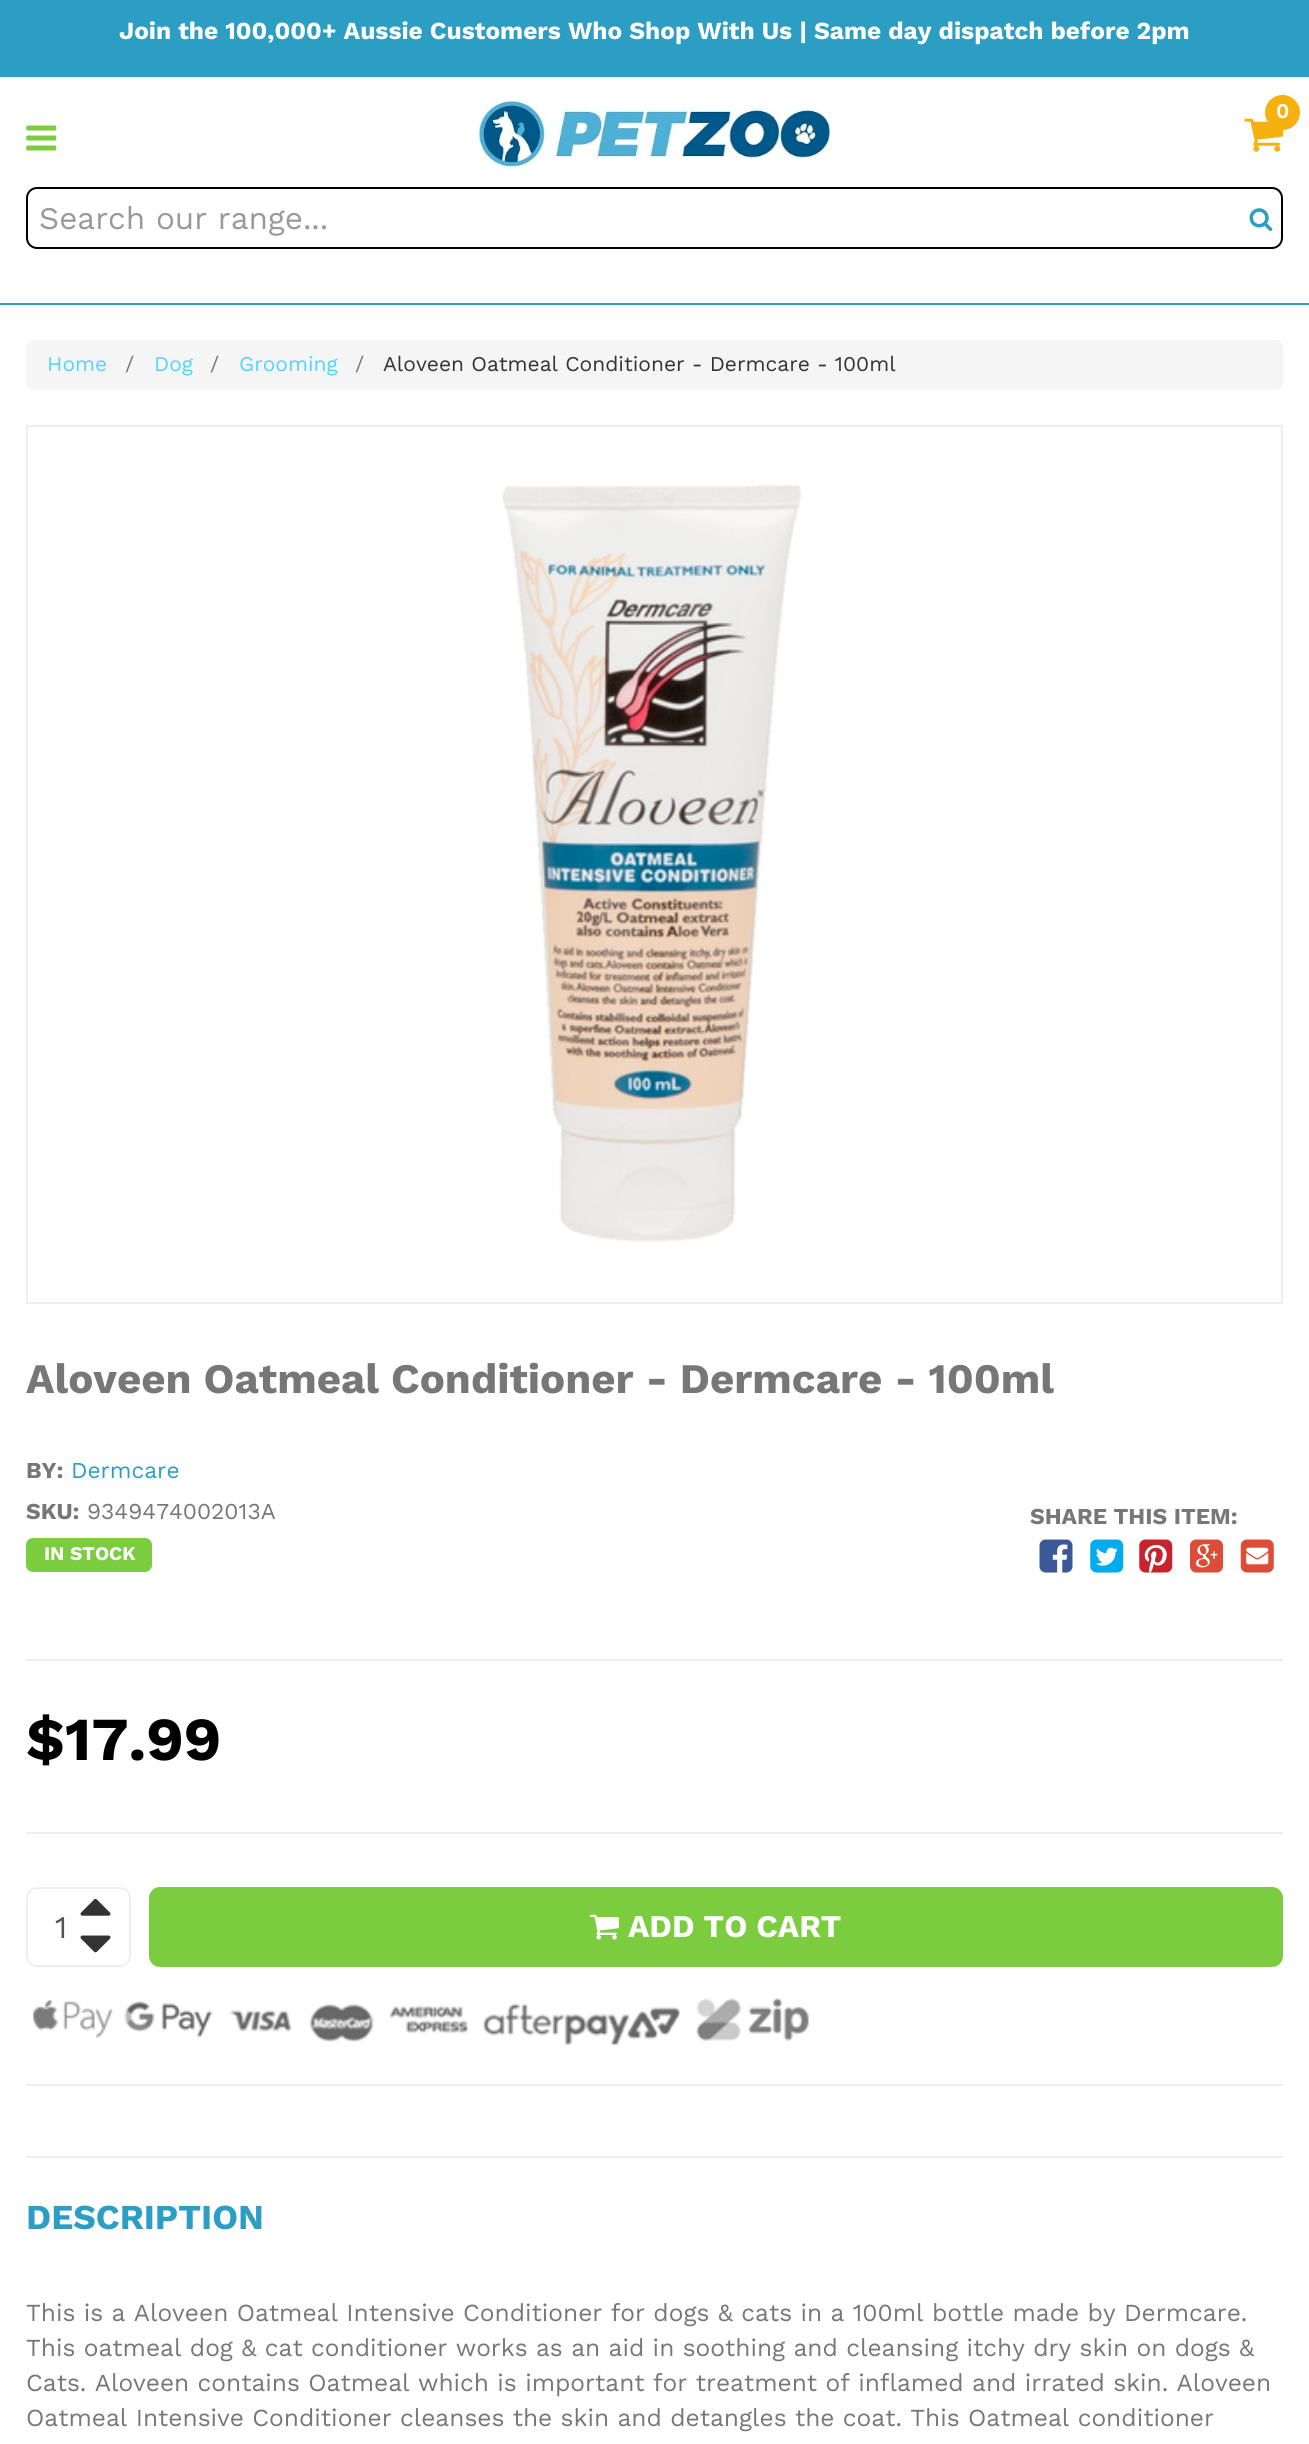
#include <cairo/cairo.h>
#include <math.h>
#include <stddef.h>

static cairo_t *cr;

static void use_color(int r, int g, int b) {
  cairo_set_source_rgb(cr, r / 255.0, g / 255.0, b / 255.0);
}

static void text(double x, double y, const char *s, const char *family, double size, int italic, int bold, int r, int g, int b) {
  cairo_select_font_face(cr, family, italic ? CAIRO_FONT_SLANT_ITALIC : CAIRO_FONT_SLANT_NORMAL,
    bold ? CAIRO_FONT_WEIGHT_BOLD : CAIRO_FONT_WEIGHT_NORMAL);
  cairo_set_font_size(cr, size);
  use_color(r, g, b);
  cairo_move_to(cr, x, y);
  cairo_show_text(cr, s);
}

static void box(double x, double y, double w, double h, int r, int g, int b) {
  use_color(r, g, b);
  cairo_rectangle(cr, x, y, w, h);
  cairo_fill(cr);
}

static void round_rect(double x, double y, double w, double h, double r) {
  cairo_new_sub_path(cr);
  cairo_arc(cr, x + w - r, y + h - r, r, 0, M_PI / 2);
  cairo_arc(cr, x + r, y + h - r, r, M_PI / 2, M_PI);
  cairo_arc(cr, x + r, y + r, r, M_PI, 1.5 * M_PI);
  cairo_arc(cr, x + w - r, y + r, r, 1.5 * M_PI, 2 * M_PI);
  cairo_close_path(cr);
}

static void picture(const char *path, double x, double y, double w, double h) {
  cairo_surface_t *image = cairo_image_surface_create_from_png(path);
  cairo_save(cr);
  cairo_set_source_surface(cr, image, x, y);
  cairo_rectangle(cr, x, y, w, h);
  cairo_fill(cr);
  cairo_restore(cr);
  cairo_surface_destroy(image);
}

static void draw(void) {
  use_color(255, 255, 255);
  cairo_paint(cr);
  box(0, 0, 1309, 77, 44, 157, 195);
  picture("img_01.png", 479, 101, 351, 66);
  picture("img_02.png", 1244, 118, 40, 34);
  use_color(246, 177, 14);
  cairo_arc(cr, 1282.5, 112.5, 17.5, 0, 2 * M_PI);
  cairo_fill(cr);
  picture("img_03.png", 26, 125, 31, 26);
  round_rect(27, 188, 1255, 60, 10);
  use_color(0, 0, 0);
  cairo_stroke(cr);
  picture("img_04.png", 1249, 208, 24, 23);
  box(0, 303, 1309, 2, 44, 157, 195);
  use_color(245, 245, 245);
  round_rect(26, 340, 1257, 50, 7);
  cairo_fill(cr);
  cairo_rectangle(cr, 27, 426, 1255, 877);
  use_color(238, 238, 238);
  cairo_stroke(cr);
  picture("img_05.png", 502, 484, 300, 758);
  picture("img_06.png", 1039, 1539, 34, 34);
  picture("img_07.png", 1090, 1539, 34, 34);
  picture("img_08.png", 1139, 1539, 34, 34);
  picture("img_09.png", 1190, 1539, 33, 34);
  picture("img_10.png", 1240, 1539, 34, 34);
  use_color(123, 204, 63);
  round_rect(26, 1538, 126, 34, 7);
  cairo_fill(cr);
  box(26, 1659, 1257, 2, 238, 238, 238);
  box(26, 1832, 1257, 2, 238, 238, 238);
  round_rect(27, 1888, 103, 78, 10);
  cairo_stroke(cr);
  picture("img_11.png", 80, 1898, 31, 18);
  picture("img_12.png", 80, 1935, 31, 18);
  use_color(123, 204, 63);
  round_rect(150, 1888, 1132, 78, 10);
  cairo_fill_preserve(cr);
  cairo_stroke(cr);
  picture("img_13.png", 589, 1914, 30, 26);
  picture("img_14.png", 32, 1998, 777, 48);
  box(26, 2084, 1257, 2, 238, 238, 238);
  box(26, 2156, 1257, 2, 238, 238, 238);
  text(119, 39, "Join the 100,000+ Aussie Customers Who Shop With Us | Same day dispatch before 2pm", "Work Sans", 24.5, 0, 1, 255, 255, 255);
  text(1276, 118, "0", "Work Sans SemiBold", 21, 0, 0, 255, 255, 255);
  text(39, 229, "Search our range...", "Work Sans", 31.5, 0, 0, 153, 153, 153);
  text(47, 371, "Home", "Work Sans", 21, 0, 0, 83, 212, 255);
  text(125, 371, "/", "Work Sans", 21, 0, 0, 119, 119, 119);
  text(154, 371, "Dog", "Work Sans", 21, 0, 0, 83, 212, 255);
  text(210, 371, "/", "Work Sans", 21, 0, 0, 119, 119, 119);
  text(239, 371, "Grooming", "Work Sans", 21, 0, 0, 83, 212, 255);
  text(355, 371, "/", "Work Sans", 21, 0, 0, 119, 119, 119);
  text(383, 371, "Aloveen Oatmeal Conditioner - Dermcare - 100ml", "Work Sans", 21, 0, 0, 51, 51, 51);
  text(26, 1393, "Aloveen Oatmeal Conditioner - Dermcare - 100ml", "Work Sans", 42, 0, 1, 119, 119, 119);
  text(26, 1478, "BY:", "Work Sans", 22.75, 0, 1, 119, 119, 119);
  text(71, 1478, "Dermcare", "Work Sans", 22.75, 0, 0, 44, 157, 195);
  text(26, 1519, "SKU:", "Work Sans", 22.75, 0, 1, 119, 119, 119);
  text(87, 1519, "9349474002013A", "Work Sans", 22.75, 0, 0, 119, 119, 119);
  text(1030, 1524, "SHARE THIS ITEM:", "Work Sans", 22.75, 0, 1, 119, 119, 119);
  text(44, 1560, "IN STOCK", "Work Sans", 19.25, 0, 1, 255, 255, 255);
  text(26, 1760, "$17.99", "Work Sans", 61, 0, 1, 0, 0, 0);
  text(55, 1938, "1", "Work Sans", 31.5, 0, 0, 85, 85, 85);
  text(628, 1937, "ADD TO CART", "Work Sans", 31.5, 0, 1, 255, 255, 255);
  text(26, 2229, "DESCRIPTION", "Work Sans", 35, 0, 1, 44, 157, 195);
  text(26, 2321, "This is a Aloveen Oatmeal Intensive Conditioner for dogs & cats in a 100ml bottle made by Dermcare.", "Work Sans", 24.5, 0, 0, 119, 119, 119);
  text(26, 2356, "This oatmeal dog & cat conditioner works as an aid in soothing and cleansing itchy dry skin on dogs &", "Work Sans", 24.5, 0, 0, 119, 119, 119);
  text(26, 2391, "Cats. Aloveen contains Oatmeal which is important for treatment of inflamed and irrated skin. Aloveen", "Work Sans", 24.5, 0, 0, 119, 119, 119);
  text(26, 2426, "Oatmeal Intensive Conditioner cleanses the skin and detangles the coat. This Oatmeal conditioner", "Work Sans", 24.5, 0, 0, 119, 119, 119);
}

int main(void) {
  cairo_surface_t *surface = cairo_image_surface_create(CAIRO_FORMAT_RGB24, 1309, 2444);
  cr = cairo_create(surface);
  cairo_font_options_t *options = cairo_font_options_create();
  cairo_font_options_set_hint_metrics(options, CAIRO_HINT_METRICS_OFF);
  cairo_font_options_set_hint_style(options, CAIRO_HINT_STYLE_NONE);
  cairo_set_font_options(cr, options);
  cairo_set_miter_limit(cr, 4);
  draw();
  cairo_surface_write_to_png(surface, "out.png");
  cairo_font_options_destroy(options);
  cairo_destroy(cr);
  cairo_surface_destroy(surface);
  return 0;
}
